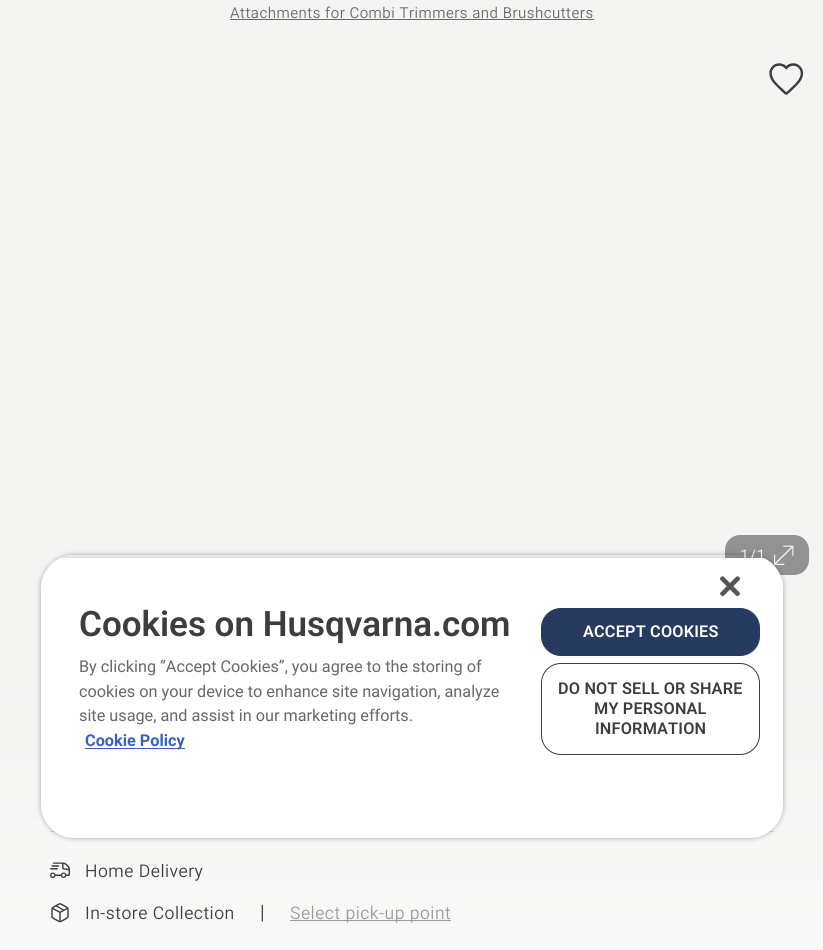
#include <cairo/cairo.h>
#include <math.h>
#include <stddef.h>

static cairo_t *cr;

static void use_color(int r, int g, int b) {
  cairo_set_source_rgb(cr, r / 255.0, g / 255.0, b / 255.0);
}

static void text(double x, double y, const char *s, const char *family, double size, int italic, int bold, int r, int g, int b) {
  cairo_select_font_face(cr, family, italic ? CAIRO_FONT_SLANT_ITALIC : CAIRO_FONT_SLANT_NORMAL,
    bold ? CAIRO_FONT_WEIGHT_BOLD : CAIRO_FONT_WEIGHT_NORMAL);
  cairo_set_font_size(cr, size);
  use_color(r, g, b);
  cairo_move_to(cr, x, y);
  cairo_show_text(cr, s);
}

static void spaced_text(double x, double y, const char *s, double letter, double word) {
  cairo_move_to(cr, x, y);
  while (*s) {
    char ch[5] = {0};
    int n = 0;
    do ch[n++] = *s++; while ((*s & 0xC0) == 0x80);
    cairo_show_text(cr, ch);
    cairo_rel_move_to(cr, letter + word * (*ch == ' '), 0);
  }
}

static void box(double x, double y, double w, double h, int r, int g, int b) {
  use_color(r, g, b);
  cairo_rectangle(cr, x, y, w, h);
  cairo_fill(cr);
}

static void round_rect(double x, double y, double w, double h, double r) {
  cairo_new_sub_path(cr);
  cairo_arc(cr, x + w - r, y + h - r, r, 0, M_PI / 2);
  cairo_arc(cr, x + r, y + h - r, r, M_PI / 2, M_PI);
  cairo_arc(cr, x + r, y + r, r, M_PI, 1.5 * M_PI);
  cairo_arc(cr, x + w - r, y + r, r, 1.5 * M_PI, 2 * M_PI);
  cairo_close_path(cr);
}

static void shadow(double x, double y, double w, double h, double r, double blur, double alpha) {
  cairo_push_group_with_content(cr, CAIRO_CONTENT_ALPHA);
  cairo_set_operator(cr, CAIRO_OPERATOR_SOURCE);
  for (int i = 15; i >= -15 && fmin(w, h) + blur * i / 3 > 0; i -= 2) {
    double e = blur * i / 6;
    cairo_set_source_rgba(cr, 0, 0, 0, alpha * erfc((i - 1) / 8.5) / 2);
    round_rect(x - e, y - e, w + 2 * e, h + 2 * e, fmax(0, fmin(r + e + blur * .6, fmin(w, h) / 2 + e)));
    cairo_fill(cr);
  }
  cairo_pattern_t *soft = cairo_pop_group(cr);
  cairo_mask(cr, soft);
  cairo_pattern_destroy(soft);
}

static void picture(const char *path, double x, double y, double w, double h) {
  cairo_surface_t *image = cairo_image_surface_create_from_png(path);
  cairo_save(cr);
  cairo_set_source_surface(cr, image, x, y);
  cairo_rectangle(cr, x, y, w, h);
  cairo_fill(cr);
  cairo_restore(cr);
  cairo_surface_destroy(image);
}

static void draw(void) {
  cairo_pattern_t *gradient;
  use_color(255, 255, 255);
  cairo_paint(cr);
  gradient = cairo_pattern_create_linear(412, -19, 412, 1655);
  cairo_pattern_add_color_stop_rgba(gradient, 0, 0.957, 0.957, 0.953, 1);
  cairo_pattern_add_color_stop_rgba(gradient, 0.41, 0.957, 0.957, 0.953, 1);
  cairo_pattern_add_color_stop_rgba(gradient, 0.82, 1, 1, 1, 1);
  cairo_set_source(cr, gradient);
  cairo_pattern_destroy(gradient);
  cairo_rectangle(cr, 0, 0, 823, 950);
  cairo_fill(cr);
  box(230, 19, 364, 1, 104, 104, 103);
  picture("img_01.png", 769, 63, 35, 32);
  use_color(146, 146, 146);
  round_rect(725, 535, 84, 40, 15);
  cairo_fill(cr);
  picture("img_02.png", 774, 545, 20, 20);
  box(50, 831, 724, 1, 210, 210, 209);
  picture("img_03.png", 50, 862, 20, 16);
  picture("img_04.png", 51, 903, 18, 20);
  box(290, 920, 161, 1, 155, 155, 154);
  cairo_save(cr);
  cairo_set_fill_rule(cr, CAIRO_FILL_RULE_EVEN_ODD);
  cairo_new_path(cr);
  cairo_move_to(cr, 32, 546);
  cairo_line_to(cr, 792, 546);
  cairo_line_to(cr, 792, 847);
  cairo_line_to(cr, 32, 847);
  cairo_close_path(cr);
  cairo_move_to(cr, 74, 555);
  cairo_line_to(cr, 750, 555);
  cairo_curve_to(cr, 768, 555, 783, 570, 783, 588);
  cairo_line_to(cr, 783, 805);
  cairo_curve_to(cr, 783, 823, 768, 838, 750, 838);
  cairo_line_to(cr, 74, 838);
  cairo_curve_to(cr, 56, 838, 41, 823, 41, 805);
  cairo_line_to(cr, 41, 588);
  cairo_curve_to(cr, 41, 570, 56, 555, 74, 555);
  cairo_close_path(cr);
  cairo_clip(cr);
  use_color(0, 0, 0);
  shadow(41, 555, 742, 283, 33, 2.5, 0.35);
  cairo_restore(cr);
  cairo_save(cr);
  round_rect(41, 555, 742, 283, 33);
  cairo_clip(cr);
  use_color(0, 0, 0);
  shadow(41, 558, 742, 280, 0, 2.5, 0.2);
  cairo_restore(cr);
  cairo_select_font_face(cr, "Roboto Light", CAIRO_FONT_SLANT_NORMAL, CAIRO_FONT_WEIGHT_NORMAL);
  cairo_set_font_size(cr, 15);
  use_color(104, 104, 103);
  spaced_text(230, 18, "Attachments for Combi Trimmers and Brushcutters", 0.5, 0);
  cairo_set_font_size(cr, 16);
  use_color(244, 244, 243);
  spaced_text(740, 561, "1/1", 0.5, 0);
  cairo_set_font_size(cr, 17.5);
  use_color(61, 61, 60);
  spaced_text(85, 877, "Home Delivery", 0.5, 0);
  spaced_text(85, 919, "In-store Collection", 0.5, 0);
  cairo_set_font_size(cr, 20);
  spaced_text(260, 919, "|", 0.5, 0);
  cairo_set_font_size(cr, 17.5);
  use_color(155, 155, 154);
  spaced_text(290, 919, "Select pick-up point", 0.5, 0);
  cairo_save(cr);
  round_rect(41, 555, 742, 283, 33);
  cairo_clip(cr);
  use_color(255, 255, 255);
  cairo_new_path(cr);
  cairo_move_to(cr, 41, 558);
  cairo_line_to(cr, 783, 558);
  cairo_line_to(cr, 783, 805);
  cairo_curve_to(cr, 783, 823, 768, 838, 750, 838);
  cairo_line_to(cr, 74, 838);
  cairo_curve_to(cr, 56, 838, 41, 823, 41, 805);
  cairo_close_path(cr);
  cairo_fill(cr);
  cairo_restore(cr);
  picture("img_05.png", 720, 576, 20, 20);
  text(79, 636, "Cookies on Husqvarna.com", "Roboto SemiBold", 35, 0, 0, 61, 61, 60);
  text(79, 672, "By clicking “Accept Cookies”, you agree to the storing of", "Roboto", 16.25, 0, 0, 104, 104, 103);
  text(79, 697, "cookies on your device to enhance site navigation, analyze", "Roboto", 16.25, 0, 0, 104, 104, 103);
  text(79, 721, "site usage, and assist in our marketing efforts.", "Roboto", 16.25, 0, 0, 104, 104, 103);
  box(85, 748, 100, 1, 56, 96, 190);
  text(85, 746, "Cookie Policy", "Roboto", 16.25, 0, 1, 56, 96, 190);
  use_color(39, 58, 96);
  round_rect(541.5, 608.5, 218, 47, 19.5);
  cairo_fill_preserve(cr);
  cairo_set_line_width(cr, 1);
  cairo_stroke(cr);
  cairo_select_font_face(cr, "Roboto SemiBold", CAIRO_FONT_SLANT_NORMAL, CAIRO_FONT_WEIGHT_NORMAL);
  use_color(255, 255, 255);
  spaced_text(583, 637, "ACCEPT COOKIES", 0.2, 0);
  round_rect(541.5, 663.5, 218, 91, 19.5);
  use_color(61, 61, 60);
  cairo_stroke(cr);
  spaced_text(558, 694, "DO NOT SELL OR SHARE", 0.2, 0);
  spaced_text(594, 714, "MY PERSONAL", 0.2, 0);
  spaced_text(595, 734, "INFORMATION", 0.2, 0);
}

int main(void) {
  cairo_surface_t *surface = cairo_image_surface_create(CAIRO_FORMAT_RGB24, 823, 950);
  cr = cairo_create(surface);
  cairo_font_options_t *options = cairo_font_options_create();
  cairo_font_options_set_hint_metrics(options, CAIRO_HINT_METRICS_OFF);
  cairo_font_options_set_hint_style(options, CAIRO_HINT_STYLE_NONE);
  cairo_set_font_options(cr, options);
  cairo_set_miter_limit(cr, 4);
  draw();
  cairo_surface_write_to_png(surface, "out.png");
  cairo_font_options_destroy(options);
  cairo_destroy(cr);
  cairo_surface_destroy(surface);
  return 0;
}
